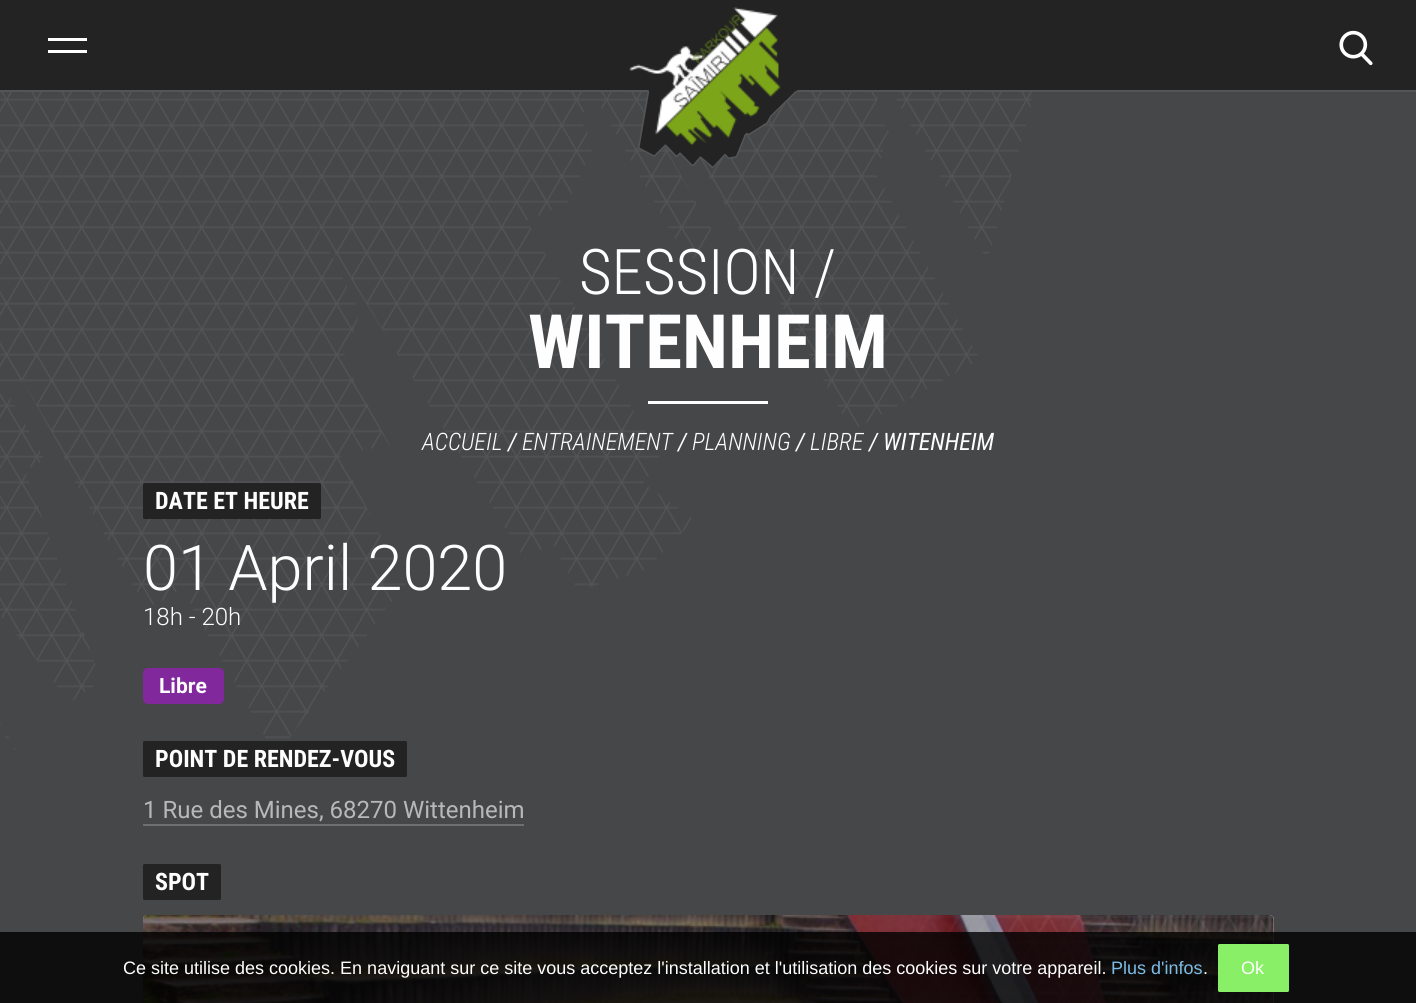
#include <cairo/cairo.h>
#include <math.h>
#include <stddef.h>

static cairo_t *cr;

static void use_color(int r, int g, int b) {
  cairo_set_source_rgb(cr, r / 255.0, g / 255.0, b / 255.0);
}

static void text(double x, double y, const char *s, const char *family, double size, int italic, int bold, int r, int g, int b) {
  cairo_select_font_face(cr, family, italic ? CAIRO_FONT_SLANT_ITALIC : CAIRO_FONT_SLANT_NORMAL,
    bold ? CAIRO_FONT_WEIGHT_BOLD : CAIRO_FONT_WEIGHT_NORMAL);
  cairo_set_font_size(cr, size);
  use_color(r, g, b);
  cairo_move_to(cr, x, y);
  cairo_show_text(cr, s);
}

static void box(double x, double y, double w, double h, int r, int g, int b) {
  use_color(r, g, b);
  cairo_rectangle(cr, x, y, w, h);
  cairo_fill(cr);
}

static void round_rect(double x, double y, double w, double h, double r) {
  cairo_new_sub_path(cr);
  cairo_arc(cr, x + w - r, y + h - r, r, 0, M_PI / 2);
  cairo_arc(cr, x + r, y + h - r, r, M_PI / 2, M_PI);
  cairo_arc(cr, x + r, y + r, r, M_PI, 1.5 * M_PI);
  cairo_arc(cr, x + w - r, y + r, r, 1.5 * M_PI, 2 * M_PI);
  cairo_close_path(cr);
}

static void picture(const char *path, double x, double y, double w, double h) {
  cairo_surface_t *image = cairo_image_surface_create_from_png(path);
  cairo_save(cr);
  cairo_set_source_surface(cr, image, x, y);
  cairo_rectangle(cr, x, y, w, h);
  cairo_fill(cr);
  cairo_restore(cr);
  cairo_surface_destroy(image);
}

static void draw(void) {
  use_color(70, 71, 73);
  cairo_paint(cr);
  box(0, 0, 1416, 90, 35, 35, 35);
  box(0, 90, 1416, 2, 84, 85, 87);
  box(48, 38, 39, 3, 255, 255, 255);
  box(48, 50, 39, 3, 255, 255, 255);
  picture("img_04.png", 0, 92, 1032, 658);
  picture("img_03.png", 638, 90, 160, 78);
  picture("img_01.png", 629, 7, 152, 139);
  picture("img_02.png", 1339, 30, 34, 36);
  box(648, 401, 120, 3, 254, 254, 254);
  use_color(35, 35, 35);
  round_rect(143, 483, 178, 36, 1.5);
  cairo_fill(cr);
  use_color(129, 40, 157);
  round_rect(144, 669, 79, 34, 4);
  cairo_fill_preserve(cr);
  cairo_stroke(cr);
  use_color(35, 35, 35);
  round_rect(143, 741, 264, 36, 1.5);
  cairo_fill(cr);
  box(143, 824, 381, 2, 110, 111, 113);
  use_color(35, 35, 35);
  round_rect(143, 864, 78, 36, 1.5);
  cairo_fill(cr);
  use_color(254, 254, 254);
  round_rect(143, 915, 1131, 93, 5);
  cairo_fill(cr);
  picture("img_05.png", 143, 915, 1131, 88);
  cairo_set_source_rgba(cr, 0.039, 0.039, 0.039, 0.35);
  round_rect(143, 915, 1131, 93, 5);
  cairo_fill(cr);
  picture("img_06.png", 912, 915, 362, 88);
  cairo_set_source_rgba(cr, 0, 0, 0, 0.8);
  cairo_rectangle(cr, 0, 932, 1416, 71);
  cairo_fill(cr);
  use_color(136, 239, 102);
  round_rect(1218, 944, 71, 48, 1.5);
  cairo_fill(cr);
  text(579, 294, "SESSION /", "Roboto Condensed Light", 63, 0, 0, 254, 254, 254);
  text(528, 368, "WITENHEIM", "Roboto Condensed", 75, 0, 1, 254, 254, 254);
  text(422, 450, "ACCUEIL", "Roboto Condensed Light", 24, 1, 0, 254, 254, 254);
  text(508, 450, "/", "Roboto Condensed", 24, 1, 0, 254, 254, 254);
  text(522, 450, "ENTRAINEMENT", "Roboto Condensed Light", 24, 1, 0, 254, 254, 254);
  text(678, 450, "/", "Roboto Condensed", 24, 1, 0, 254, 254, 254);
  text(692, 450, "PLANNING", "Roboto Condensed Light", 24, 1, 0, 254, 254, 254);
  text(796, 450, "/", "Roboto Condensed", 24, 1, 0, 254, 254, 254);
  text(810, 450, "LIBRE", "Roboto Condensed Light", 24, 1, 0, 254, 254, 254);
  text(869, 450, "/ WITENHEIM", "Roboto Condensed", 24, 1, 0, 254, 254, 254);
  text(155, 509, "DATE ET HEURE", "Roboto Condensed", 24, 0, 1, 254, 254, 254);
  text(143, 590, "01 April 2020", "Roboto Light", 63, 0, 0, 254, 254, 254);
  text(143, 625, "18h - 20h", "Roboto Light", 24, 0, 0, 254, 254, 254);
  text(159, 693, "Libre", "Roboto", 21, 0, 1, 254, 254, 254);
  text(155, 767, "POINT DE RENDEZ-VOUS", "Roboto Condensed", 24, 0, 1, 254, 254, 254);
  text(143, 818, "1 Rue des Mines, 68270 Wittenheim", "Roboto", 24, 0, 0, 184, 184, 185);
  text(155, 890, "SPOT", "Roboto Condensed", 24, 0, 1, 254, 254, 254);
  text(123, 974, "Ce site utilise des cookies. En naviguant sur ce site vous acceptez l'installation et l'utilisation des cookies sur votre appareil.", "Liberation Sans", 18, 0, 0, 254, 254, 254);
  text(1111, 974, "Plus d'infos", "Liberation Sans", 18, 0, 0, 123, 189, 232);
  text(1203, 974, ".", "Liberation Sans", 18, 0, 0, 254, 254, 254);
  text(1241, 974, "Ok", "Liberation Sans", 18, 0, 0, 254, 254, 254);
}

int main(void) {
  cairo_surface_t *surface = cairo_image_surface_create(CAIRO_FORMAT_RGB24, 1416, 1003);
  cr = cairo_create(surface);
  cairo_font_options_t *options = cairo_font_options_create();
  cairo_font_options_set_hint_metrics(options, CAIRO_HINT_METRICS_OFF);
  cairo_font_options_set_hint_style(options, CAIRO_HINT_STYLE_NONE);
  cairo_set_font_options(cr, options);
  cairo_set_miter_limit(cr, 4);
  draw();
  cairo_surface_write_to_png(surface, "out.png");
  cairo_font_options_destroy(options);
  cairo_destroy(cr);
  cairo_surface_destroy(surface);
  return 0;
}
